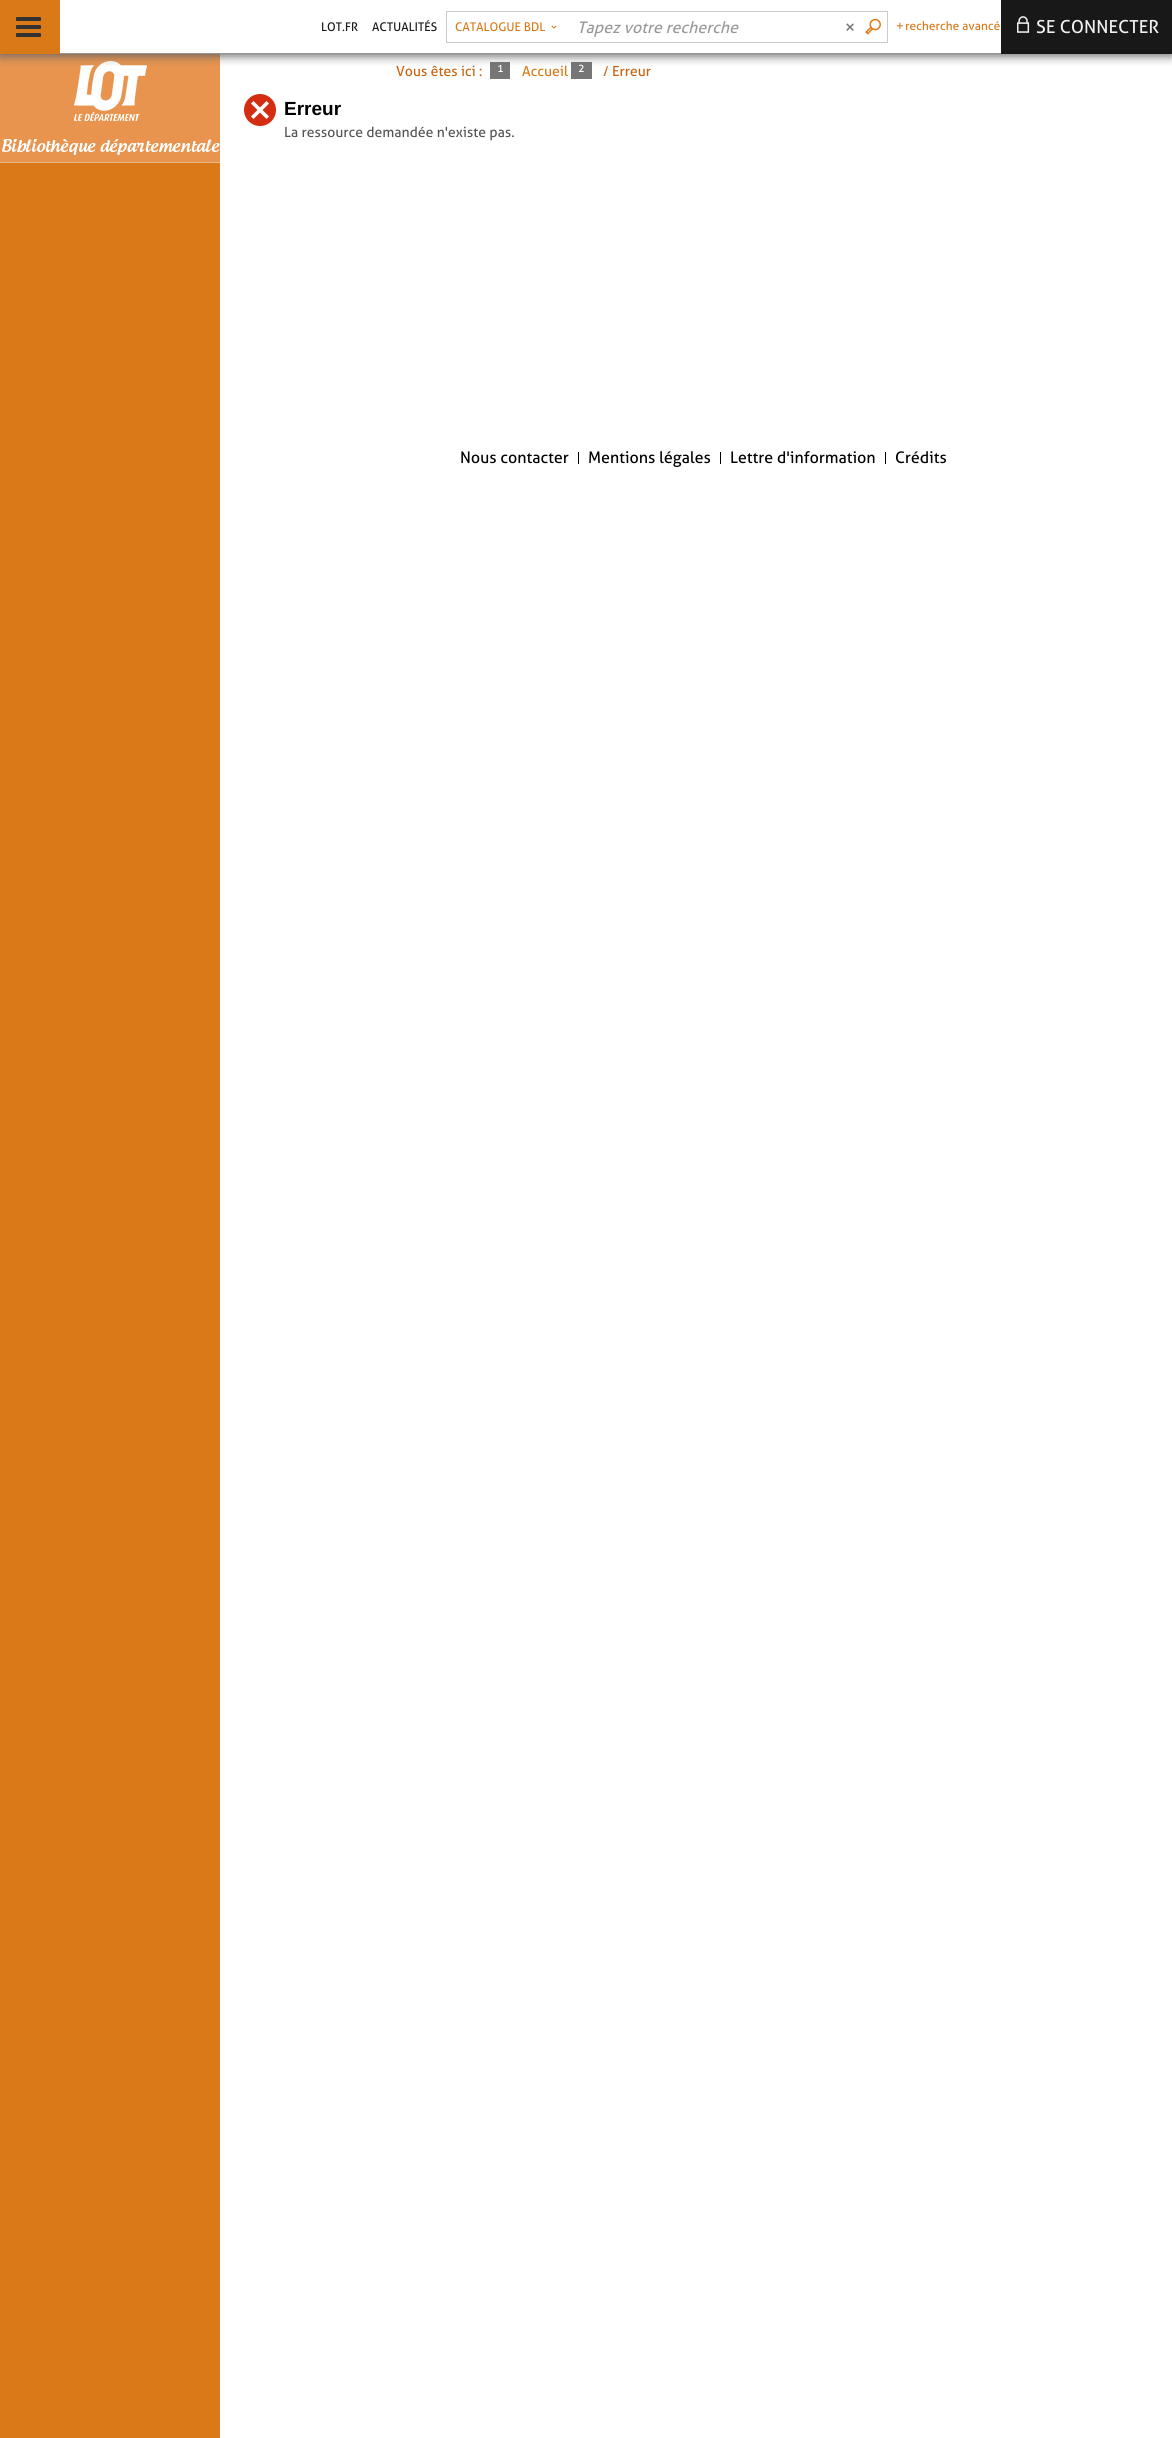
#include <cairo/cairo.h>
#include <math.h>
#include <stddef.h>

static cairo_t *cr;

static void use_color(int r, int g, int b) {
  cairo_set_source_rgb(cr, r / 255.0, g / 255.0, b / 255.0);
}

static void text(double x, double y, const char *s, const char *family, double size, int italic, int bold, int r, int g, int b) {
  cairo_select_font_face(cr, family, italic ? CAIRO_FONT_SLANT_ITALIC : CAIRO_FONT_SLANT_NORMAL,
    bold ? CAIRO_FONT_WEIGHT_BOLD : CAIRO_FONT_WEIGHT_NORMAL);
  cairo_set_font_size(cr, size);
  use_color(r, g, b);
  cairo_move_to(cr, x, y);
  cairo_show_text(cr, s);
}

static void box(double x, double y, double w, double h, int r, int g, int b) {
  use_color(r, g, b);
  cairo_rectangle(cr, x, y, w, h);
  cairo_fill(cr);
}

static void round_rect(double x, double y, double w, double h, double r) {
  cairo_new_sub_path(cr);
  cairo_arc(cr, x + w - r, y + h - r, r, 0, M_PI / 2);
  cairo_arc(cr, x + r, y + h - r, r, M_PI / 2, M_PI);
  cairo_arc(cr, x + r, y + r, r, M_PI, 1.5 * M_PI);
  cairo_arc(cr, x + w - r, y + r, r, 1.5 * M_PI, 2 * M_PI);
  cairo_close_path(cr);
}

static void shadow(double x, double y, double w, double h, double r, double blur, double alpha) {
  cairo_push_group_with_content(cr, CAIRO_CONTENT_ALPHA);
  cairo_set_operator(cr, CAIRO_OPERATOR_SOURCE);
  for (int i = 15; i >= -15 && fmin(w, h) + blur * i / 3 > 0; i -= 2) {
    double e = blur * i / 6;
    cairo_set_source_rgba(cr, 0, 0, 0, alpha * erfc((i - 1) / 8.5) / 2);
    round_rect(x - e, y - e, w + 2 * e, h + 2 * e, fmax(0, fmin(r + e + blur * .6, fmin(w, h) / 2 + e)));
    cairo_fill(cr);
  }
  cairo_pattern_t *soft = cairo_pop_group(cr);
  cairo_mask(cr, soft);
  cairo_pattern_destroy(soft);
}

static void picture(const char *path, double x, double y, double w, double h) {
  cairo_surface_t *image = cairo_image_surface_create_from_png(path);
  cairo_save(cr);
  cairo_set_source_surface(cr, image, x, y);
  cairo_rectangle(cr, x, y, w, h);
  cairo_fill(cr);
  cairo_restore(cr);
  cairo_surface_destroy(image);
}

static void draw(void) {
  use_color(255, 255, 255);
  cairo_paint(cr);
  picture("img_01.png", 0, 54, 220, 2384);
  box(490, 62, 20, 17, 118, 118, 118);
  box(571, 62, 21, 17, 118, 118, 118);
  picture("img_13.png", 396, 65, 86, 12);
  picture("img_14.png", 498, 64, 5, 8);
  picture("img_15.png", 522, 65, 46, 12);
  picture("img_16.png", 578, 64, 6, 8);
  use_color(199, 99, 16);
  cairo_new_path(cr);
  cairo_move_to(cr, 607, 66);
  cairo_line_to(cr, 608, 66);
  cairo_line_to(cr, 605, 76);
  cairo_line_to(cr, 603.5, 76);
  cairo_close_path(cr);
  cairo_fill(cr);
  picture("img_17.png", 613, 65, 38, 12);
  cairo_save(cr);
  cairo_rectangle(cr, 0, 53, 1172, 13);
  cairo_clip(cr);
  use_color(102, 102, 102);
  shadow(0, 3, 1172, 53, 0, 5, 1);
  cairo_restore(cr);
  box(0, 0, 60, 54, 218, 121, 24);
  use_color(51, 51, 51);
  round_rect(16, 17, 25, 4, 1);
  cairo_fill(cr);
  round_rect(16, 25, 25, 4, 1);
  cairo_fill(cr);
  round_rect(16, 33, 25, 4, 1);
  cairo_fill(cr);
  picture("img_02.png", 322, 22, 36, 10);
  picture("img_03.png", 372, 20, 65, 12);
  box(1001, 0, 171, 54, 24, 24, 24);
  picture("img_04.png", 1017, 16, 13, 17);
  picture("img_05.png", 1036, 19, 123, 15);
  cairo_rectangle(cr, 446.5, 11.5, 441, 31);
  use_color(203, 203, 203);
  cairo_set_line_width(cr, 1);
  cairo_stroke(cr);
  picture("img_06.png", 455, 22, 90, 10);
  picture("img_07.png", 551, 25, 6, 4);
  picture("img_08.png", 580, 21, 159, 16);
  picture("img_09.png", 846, 23, 8, 8);
  picture("img_10.png", 865, 18, 16, 17);
  picture("img_11.png", 896, 22, 7, 7);
  picture("img_12.png", 905, 21, 96, 10);
  picture("img_18.png", 244, 94, 32, 32);
  picture("img_19.png", 285, 126, 229, 15);
  picture("img_20.png", 461, 451, 108, 13);
  box(578, 452, 1, 12, 0, 0, 0);
  picture("img_21.png", 589, 451, 122, 16);
  box(720, 452, 1, 12, 0, 0, 0);
  picture("img_22.png", 731, 451, 144, 13);
  box(885, 452, 1, 12, 0, 0, 0);
  picture("img_23.png", 895, 451, 51, 13);
  text(284, 115, "Erreur", "Liberation Sans", 19, 0, 1, 0, 0, 0);
}

int main(void) {
  cairo_surface_t *surface = cairo_image_surface_create(CAIRO_FORMAT_RGB24, 1172, 2438);
  cr = cairo_create(surface);
  cairo_font_options_t *options = cairo_font_options_create();
  cairo_font_options_set_hint_metrics(options, CAIRO_HINT_METRICS_OFF);
  cairo_font_options_set_hint_style(options, CAIRO_HINT_STYLE_NONE);
  cairo_set_font_options(cr, options);
  cairo_set_miter_limit(cr, 4);
  draw();
  cairo_surface_write_to_png(surface, "out.png");
  cairo_font_options_destroy(options);
  cairo_destroy(cr);
  cairo_surface_destroy(surface);
  return 0;
}
